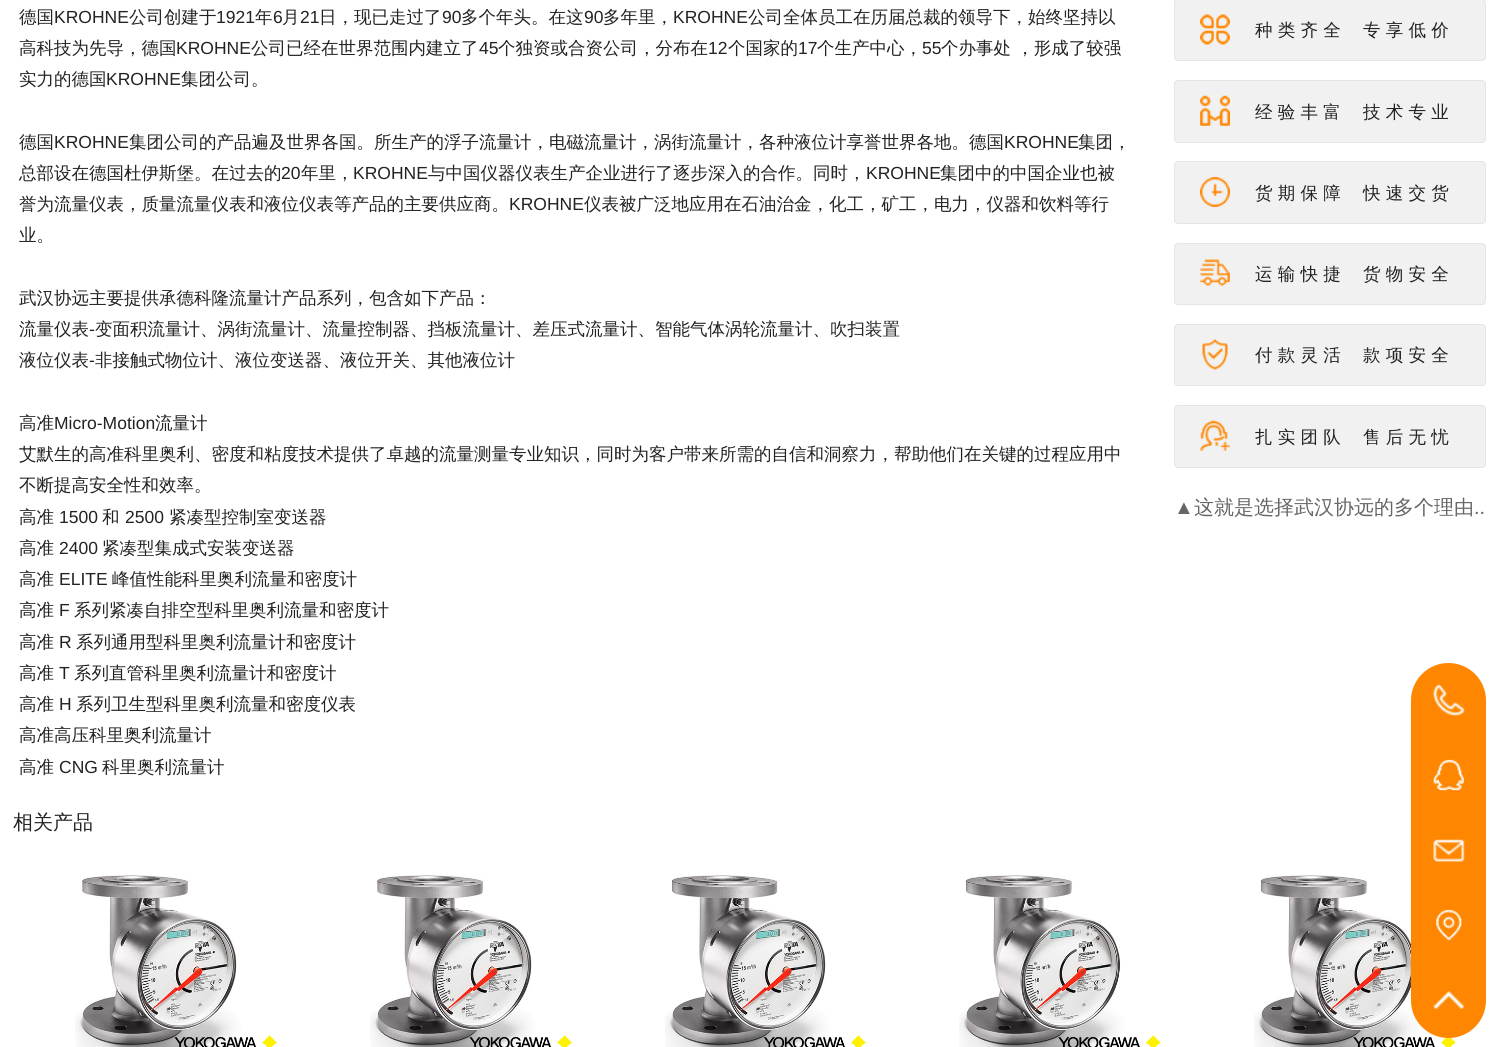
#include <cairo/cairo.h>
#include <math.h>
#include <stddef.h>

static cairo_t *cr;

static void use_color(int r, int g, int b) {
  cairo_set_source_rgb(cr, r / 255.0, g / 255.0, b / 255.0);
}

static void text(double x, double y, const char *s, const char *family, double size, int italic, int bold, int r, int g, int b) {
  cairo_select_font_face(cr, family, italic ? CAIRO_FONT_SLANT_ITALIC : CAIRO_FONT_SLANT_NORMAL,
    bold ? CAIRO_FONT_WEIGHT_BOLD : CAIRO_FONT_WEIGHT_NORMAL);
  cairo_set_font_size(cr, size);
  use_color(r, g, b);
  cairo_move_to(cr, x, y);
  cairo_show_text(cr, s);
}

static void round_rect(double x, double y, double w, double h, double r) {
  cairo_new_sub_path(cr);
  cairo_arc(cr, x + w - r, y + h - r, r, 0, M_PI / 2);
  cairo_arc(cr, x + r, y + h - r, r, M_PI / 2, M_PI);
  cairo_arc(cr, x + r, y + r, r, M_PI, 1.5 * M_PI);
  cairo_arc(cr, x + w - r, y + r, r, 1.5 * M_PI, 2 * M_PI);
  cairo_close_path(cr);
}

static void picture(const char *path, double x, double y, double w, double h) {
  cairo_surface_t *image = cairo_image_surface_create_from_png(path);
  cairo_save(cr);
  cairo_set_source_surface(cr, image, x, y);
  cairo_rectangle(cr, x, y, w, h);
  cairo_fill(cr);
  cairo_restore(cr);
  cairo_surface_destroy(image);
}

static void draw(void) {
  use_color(255, 255, 255);
  cairo_paint(cr);
  use_color(241, 241, 241);
  round_rect(1174.5, -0.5, 311, 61, 3.5);
  cairo_fill_preserve(cr);
  use_color(229, 229, 229);
  cairo_set_line_width(cr, 1);
  cairo_stroke(cr);
  picture("img_01.png", 1200, 14, 30, 31);
  use_color(241, 241, 241);
  round_rect(1174.5, 80.5, 311, 62, 3.5);
  cairo_fill_preserve(cr);
  use_color(229, 229, 229);
  cairo_stroke(cr);
  picture("img_02.png", 1200, 95, 30, 31);
  use_color(241, 241, 241);
  round_rect(1174.5, 161.5, 311, 62, 3.5);
  cairo_fill_preserve(cr);
  use_color(229, 229, 229);
  cairo_stroke(cr);
  picture("img_03.png", 1200, 177, 30, 30);
  use_color(241, 241, 241);
  round_rect(1174.5, 243.5, 311, 61, 3.5);
  cairo_fill_preserve(cr);
  use_color(229, 229, 229);
  cairo_stroke(cr);
  picture("img_04.png", 1200, 259, 30, 27);
  use_color(241, 241, 241);
  round_rect(1174.5, 324.5, 311, 61, 3.5);
  cairo_fill_preserve(cr);
  use_color(229, 229, 229);
  cairo_stroke(cr);
  picture("img_05.png", 1202, 339, 26, 31);
  use_color(241, 241, 241);
  round_rect(1174.5, 405.5, 311, 62, 3.5);
  cairo_fill_preserve(cr);
  use_color(229, 229, 229);
  cairo_stroke(cr);
  picture("img_06.png", 1200, 420, 30, 31);
  picture("img_07.png", 75, 875, 203, 172);
  picture("img_08.png", 370, 875, 203, 172);
  picture("img_09.png", 665, 875, 201, 172);
  picture("img_10.png", 959, 875, 202, 172);
  picture("img_11.png", 1254, 875, 202, 172);
  use_color(255, 134, 0);
  round_rect(1411, 663, 75, 375, 37.5);
  cairo_fill(cr);
  picture("img_12.png", 1433, 684, 32, 32);
  picture("img_13.png", 1433, 759, 31, 32);
  picture("img_14.png", 1433, 839, 32, 24);
  picture("img_15.png", 1436, 909, 26, 32);
  picture("img_16.png", 1433, 991, 32, 19);
  text(19, 23, "德国", "WenQuanYi Zen Hei Medium", 17.5, 0, 0, 34, 34, 34);
  text(54, 23, "KROHNE", "Liberation Sans", 17.5, 0, 0, 34, 34, 34);
  text(129, 23, "公司创建于", "WenQuanYi Zen Hei Medium", 17.5, 0, 0, 34, 34, 34);
  text(216, 23, "1921", "Liberation Sans", 17.5, 0, 0, 34, 34, 34);
  text(255, 23, "年", "WenQuanYi Zen Hei Medium", 17.5, 0, 0, 34, 34, 34);
  text(273, 23, "6", "Liberation Sans", 17.5, 0, 0, 34, 34, 34);
  text(282, 23, "月", "WenQuanYi Zen Hei Medium", 17.5, 0, 0, 34, 34, 34);
  text(300, 23, "21", "Liberation Sans", 17.5, 0, 0, 34, 34, 34);
  text(319, 23, "日，现已走过了", "WenQuanYi Zen Hei Medium", 17.5, 0, 0, 34, 34, 34);
  text(442, 23, "90", "Liberation Sans", 17.5, 0, 0, 34, 34, 34);
  text(461, 23, "多个年头。在这", "WenQuanYi Zen Hei Medium", 17.5, 0, 0, 34, 34, 34);
  text(584, 23, "90", "Liberation Sans", 17.5, 0, 0, 34, 34, 34);
  text(603, 23, "多年里，", "WenQuanYi Zen Hei Medium", 17.5, 0, 0, 34, 34, 34);
  text(673, 23, "KROHNE", "Liberation Sans", 17.5, 0, 0, 34, 34, 34);
  text(748, 23, "公司全体员工在历届总裁的领导下，始终坚持以", "WenQuanYi Zen Hei Medium", 17.5, 0, 0, 34, 34, 34);
  text(19, 54, "高科技为先导，德国", "WenQuanYi Zen Hei Medium", 17.5, 0, 0, 34, 34, 34);
  text(176, 54, "KROHNE", "Liberation Sans", 17.5, 0, 0, 34, 34, 34);
  text(251, 54, "公司已经在世界范围内建立了", "WenQuanYi Zen Hei Medium", 17.5, 0, 0, 34, 34, 34);
  text(479, 54, "45", "Liberation Sans", 17.5, 0, 0, 34, 34, 34);
  text(498, 54, "个独资或合资公司，分布在", "WenQuanYi Zen Hei Medium", 17.5, 0, 0, 34, 34, 34);
  text(708, 54, "12", "Liberation Sans", 17.5, 0, 0, 34, 34, 34);
  text(728, 54, "个国家的", "WenQuanYi Zen Hei Medium", 17.5, 0, 0, 34, 34, 34);
  text(798, 54, "17", "Liberation Sans", 17.5, 0, 0, 34, 34, 34);
  text(817, 54, "个生产中心，", "WenQuanYi Zen Hei Medium", 17.5, 0, 0, 34, 34, 34);
  text(922, 54, "55", "Liberation Sans", 17.5, 0, 0, 34, 34, 34);
  text(941, 54, "个办事处 ，形成了较强", "WenQuanYi Zen Hei Medium", 17.5, 0, 0, 34, 34, 34);
  text(19, 85, "实力的德国", "WenQuanYi Zen Hei Medium", 17.5, 0, 0, 34, 34, 34);
  text(106, 85, "KROHNE", "Liberation Sans", 17.5, 0, 0, 34, 34, 34);
  text(181, 85, "集团公司。", "WenQuanYi Zen Hei Medium", 17.5, 0, 0, 34, 34, 34);
  text(19, 148, "德国", "WenQuanYi Zen Hei Medium", 17.5, 0, 0, 34, 34, 34);
  text(54, 148, "KROHNE", "Liberation Sans", 17.5, 0, 0, 34, 34, 34);
  text(129, 148, "集团公司的产品遍及世界各国。所生产的浮子流量计，电磁流量计，涡街流量计，各种液位计享誉世界各地。德国", "WenQuanYi Zen Hei Medium", 17.5, 0, 0, 34, 34, 34);
  text(1004, 148, "KROHNE", "Liberation Sans", 17.5, 0, 0, 34, 34, 34);
  text(1078, 148, "集团，", "WenQuanYi Zen Hei Medium", 17.5, 0, 0, 34, 34, 34);
  text(19, 179, "总部设在德国杜伊斯堡。在过去的", "WenQuanYi Zen Hei Medium", 17.5, 0, 0, 34, 34, 34);
  text(281, 179, "20", "Liberation Sans", 17.5, 0, 0, 34, 34, 34);
  text(301, 179, "年里，", "WenQuanYi Zen Hei Medium", 17.5, 0, 0, 34, 34, 34);
  text(353, 179, "KROHNE", "Liberation Sans", 17.5, 0, 0, 34, 34, 34);
  text(428, 179, "与中国仪器仪表生产企业进行了逐步深入的合作。同时，", "WenQuanYi Zen Hei Medium", 17.5, 0, 0, 34, 34, 34);
  text(866, 179, "KROHNE", "Liberation Sans", 17.5, 0, 0, 34, 34, 34);
  text(940, 179, "集团中的中国企业也被", "WenQuanYi Zen Hei Medium", 17.5, 0, 0, 34, 34, 34);
  text(19, 210, "誉为流量仪表，质量流量仪表和液位仪表等产品的主要供应商。", "WenQuanYi Zen Hei Medium", 17.5, 0, 0, 34, 34, 34);
  text(509, 210, "KROHNE", "Liberation Sans", 17.5, 0, 0, 34, 34, 34);
  text(584, 210, "仪表被广泛地应用在石油治金，化工，矿工，电力，仪器和饮料等行", "WenQuanYi Zen Hei Medium", 17.5, 0, 0, 34, 34, 34);
  text(19, 241, "业。", "WenQuanYi Zen Hei Medium", 17.5, 0, 0, 34, 34, 34);
  text(19, 304, "武汉协远主要提供承德科隆流量计产品系列，包含如下产品：", "WenQuanYi Zen Hei Medium", 17.5, 0, 0, 34, 34, 34);
  text(19, 335, "流量仪表", "WenQuanYi Zen Hei Medium", 17.5, 0, 0, 34, 34, 34);
  text(89, 335, "-", "Liberation Sans", 17.5, 0, 0, 34, 34, 34);
  text(95, 335, "变面积流量计、涡街流量计、流量控制器、挡板流量计、差压式流量计、智能气体涡轮流量计、吹扫装置", "WenQuanYi Zen Hei Medium", 17.5, 0, 0, 34, 34, 34);
  text(19, 366, "液位仪表", "WenQuanYi Zen Hei Medium", 17.5, 0, 0, 34, 34, 34);
  text(89, 366, "-", "Liberation Sans", 17.5, 0, 0, 34, 34, 34);
  text(95, 366, "非接触式物位计、液位变送器、液位开关、其他液位计", "WenQuanYi Zen Hei Medium", 17.5, 0, 0, 34, 34, 34);
  text(19, 429, "高准", "WenQuanYi Zen Hei Medium", 17.5, 0, 0, 34, 34, 34);
  text(54, 429, "Micro-Motion", "Liberation Sans", 17.5, 0, 0, 34, 34, 34);
  text(155, 429, "流量计", "WenQuanYi Zen Hei Medium", 17.5, 0, 0, 34, 34, 34);
  text(19, 460, "艾默生的高准科里奥利、密度和粘度技术提供了卓越的流量测量专业知识，同时为客户带来所需的自信和洞察力，帮助他们在关键的过程应用中", "WenQuanYi Zen Hei Medium", 17.5, 0, 0, 34, 34, 34);
  text(19, 491, "不断提高安全性和效率。", "WenQuanYi Zen Hei Medium", 17.5, 0, 0, 34, 34, 34);
  text(19, 523, "高准", "WenQuanYi Zen Hei Medium", 17.5, 0, 0, 34, 34, 34);
  text(59, 523, "1500", "Liberation Sans", 17.5, 0, 0, 34, 34, 34);
  text(102, 523, "和", "WenQuanYi Zen Hei Medium", 17.5, 0, 0, 34, 34, 34);
  text(125, 523, "2500", "Liberation Sans", 17.5, 0, 0, 34, 34, 34);
  text(169, 523, "紧凑型控制室变送器", "WenQuanYi Zen Hei Medium", 17.5, 0, 0, 34, 34, 34);
  text(19, 554, "高准", "WenQuanYi Zen Hei Medium", 17.5, 0, 0, 34, 34, 34);
  text(59, 554, "2400", "Liberation Sans", 17.5, 0, 0, 34, 34, 34);
  text(102, 554, "紧凑型集成式安装变送器", "WenQuanYi Zen Hei Medium", 17.5, 0, 0, 34, 34, 34);
  text(19, 585, "高准", "WenQuanYi Zen Hei Medium", 17.5, 0, 0, 34, 34, 34);
  text(59, 585, "ELITE", "Liberation Sans", 17.5, 0, 0, 34, 34, 34);
  text(112, 585, "峰值性能科里奥利流量和密度计", "WenQuanYi Zen Hei Medium", 17.5, 0, 0, 34, 34, 34);
  text(19, 616, "高准", "WenQuanYi Zen Hei Medium", 17.5, 0, 0, 34, 34, 34);
  text(59, 616, "F", "Liberation Sans", 17.5, 0, 0, 34, 34, 34);
  text(74, 616, "系列紧凑自排空型科里奥利流量和密度计", "WenQuanYi Zen Hei Medium", 17.5, 0, 0, 34, 34, 34);
  text(19, 648, "高准", "WenQuanYi Zen Hei Medium", 17.5, 0, 0, 34, 34, 34);
  text(59, 648, "R", "Liberation Sans", 17.5, 0, 0, 34, 34, 34);
  text(76, 648, "系列通用型科里奥利流量计和密度计", "WenQuanYi Zen Hei Medium", 17.5, 0, 0, 34, 34, 34);
  text(19, 679, "高准", "WenQuanYi Zen Hei Medium", 17.5, 0, 0, 34, 34, 34);
  text(59, 679, "T", "Liberation Sans", 17.5, 0, 0, 34, 34, 34);
  text(74, 679, "系列直管科里奥利流量计和密度计", "WenQuanYi Zen Hei Medium", 17.5, 0, 0, 34, 34, 34);
  text(19, 710, "高准", "WenQuanYi Zen Hei Medium", 17.5, 0, 0, 34, 34, 34);
  text(59, 710, "H", "Liberation Sans", 17.5, 0, 0, 34, 34, 34);
  text(76, 710, "系列卫生型科里奥利流量和密度仪表", "WenQuanYi Zen Hei Medium", 17.5, 0, 0, 34, 34, 34);
  text(19, 741, "高准高压科里奥利流量计", "WenQuanYi Zen Hei Medium", 17.5, 0, 0, 34, 34, 34);
  text(19, 773, "高准", "WenQuanYi Zen Hei Medium", 17.5, 0, 0, 34, 34, 34);
  text(59, 773, "CNG", "Liberation Sans", 17.5, 0, 0, 34, 34, 34);
  text(102, 773, "科里奥利流量计", "WenQuanYi Zen Hei Medium", 17.5, 0, 0, 34, 34, 34);
  text(1255, 36, "种 类 齐 全", "WenQuanYi Zen Hei Medium", 17.5, 0, 0, 34, 34, 34);
  text(1363, 36, "专 享 低 价", "WenQuanYi Zen Hei Medium", 17.5, 0, 0, 34, 34, 34);
  text(1255, 118, "经 验 丰 富", "WenQuanYi Zen Hei Medium", 17.5, 0, 0, 34, 34, 34);
  text(1363, 118, "技 术 专 业", "WenQuanYi Zen Hei Medium", 17.5, 0, 0, 34, 34, 34);
  text(1255, 199, "货 期 保 障", "WenQuanYi Zen Hei Medium", 17.5, 0, 0, 34, 34, 34);
  text(1363, 199, "快 速 交 货", "WenQuanYi Zen Hei Medium", 17.5, 0, 0, 34, 34, 34);
  text(1255, 280, "运 输 快 捷", "WenQuanYi Zen Hei Medium", 17.5, 0, 0, 34, 34, 34);
  text(1363, 280, "货 物 安 全", "WenQuanYi Zen Hei Medium", 17.5, 0, 0, 34, 34, 34);
  text(1255, 361, "付 款 灵 活", "WenQuanYi Zen Hei Medium", 17.5, 0, 0, 34, 34, 34);
  text(1363, 361, "款 项 安 全", "WenQuanYi Zen Hei Medium", 17.5, 0, 0, 34, 34, 34);
  text(1255, 443, "扎 实 团 队", "WenQuanYi Zen Hei Medium", 17.5, 0, 0, 34, 34, 34);
  text(1363, 443, "售 后 无 忧", "WenQuanYi Zen Hei Medium", 17.5, 0, 0, 34, 34, 34);
  text(1174, 514, "▲", "Liberation Sans", 20, 0, 0, 102, 102, 102);
  text(1194, 514, "这就是选择武汉协远的多个理由", "WenQuanYi Zen Hei Medium", 20, 0, 0, 102, 102, 102);
  text(1474, 514, "..", "Liberation Sans", 20, 0, 0, 102, 102, 102);
  text(13, 829, "相关产品", "WenQuanYi Zen Hei Medium", 20, 0, 0, 34, 34, 34);
}

int main(void) {
  cairo_surface_t *surface = cairo_image_surface_create(CAIRO_FORMAT_RGB24, 1498, 1047);
  cr = cairo_create(surface);
  cairo_font_options_t *options = cairo_font_options_create();
  cairo_font_options_set_hint_metrics(options, CAIRO_HINT_METRICS_OFF);
  cairo_font_options_set_hint_style(options, CAIRO_HINT_STYLE_NONE);
  cairo_set_font_options(cr, options);
  cairo_set_miter_limit(cr, 4);
  draw();
  cairo_surface_write_to_png(surface, "out.png");
  cairo_font_options_destroy(options);
  cairo_destroy(cr);
  cairo_surface_destroy(surface);
  return 0;
}
